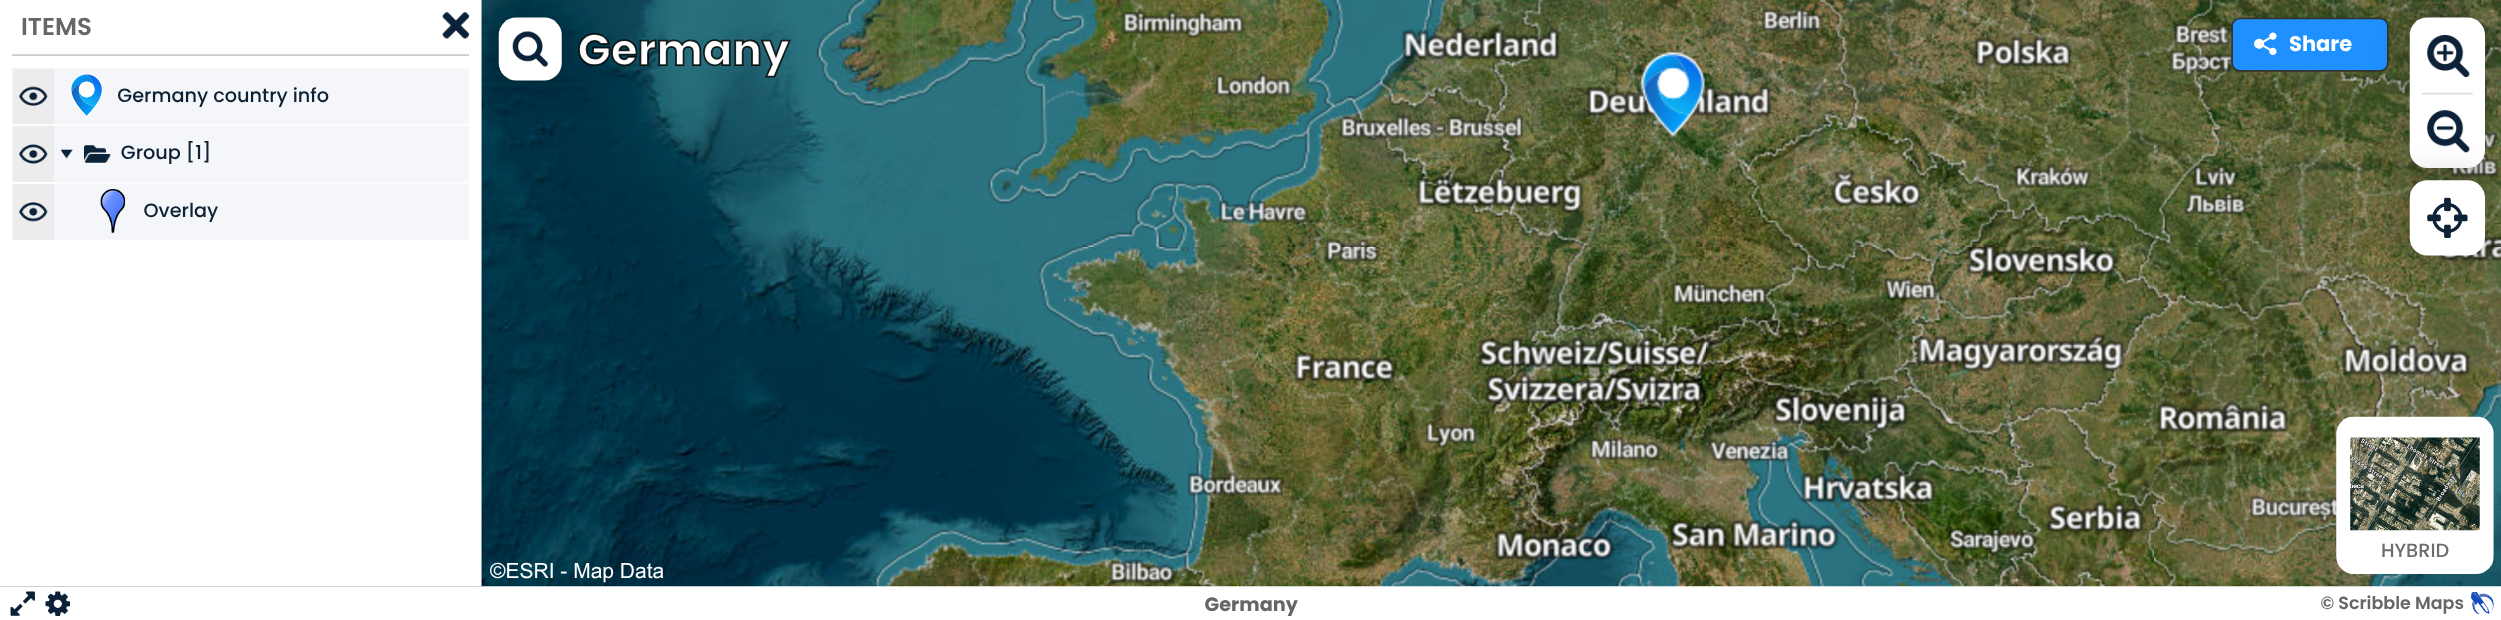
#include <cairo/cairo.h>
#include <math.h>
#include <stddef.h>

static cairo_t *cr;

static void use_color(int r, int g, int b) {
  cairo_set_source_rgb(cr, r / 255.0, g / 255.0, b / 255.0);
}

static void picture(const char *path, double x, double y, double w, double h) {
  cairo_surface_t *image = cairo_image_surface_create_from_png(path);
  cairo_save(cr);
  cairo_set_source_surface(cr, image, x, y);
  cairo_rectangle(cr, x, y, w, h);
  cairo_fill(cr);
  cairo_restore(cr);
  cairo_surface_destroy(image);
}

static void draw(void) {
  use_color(255, 255, 255);
  cairo_paint(cr);
  picture("img_01.png", 0, 0, 2501, 616);
}

int main(void) {
  cairo_surface_t *surface = cairo_image_surface_create(CAIRO_FORMAT_RGB24, 2501, 620);
  cr = cairo_create(surface);
  cairo_font_options_t *options = cairo_font_options_create();
  cairo_font_options_set_hint_metrics(options, CAIRO_HINT_METRICS_OFF);
  cairo_font_options_set_hint_style(options, CAIRO_HINT_STYLE_NONE);
  cairo_set_font_options(cr, options);
  cairo_set_miter_limit(cr, 4);
  draw();
  cairo_surface_write_to_png(surface, "out.png");
  cairo_font_options_destroy(options);
  cairo_destroy(cr);
  cairo_surface_destroy(surface);
  return 0;
}
